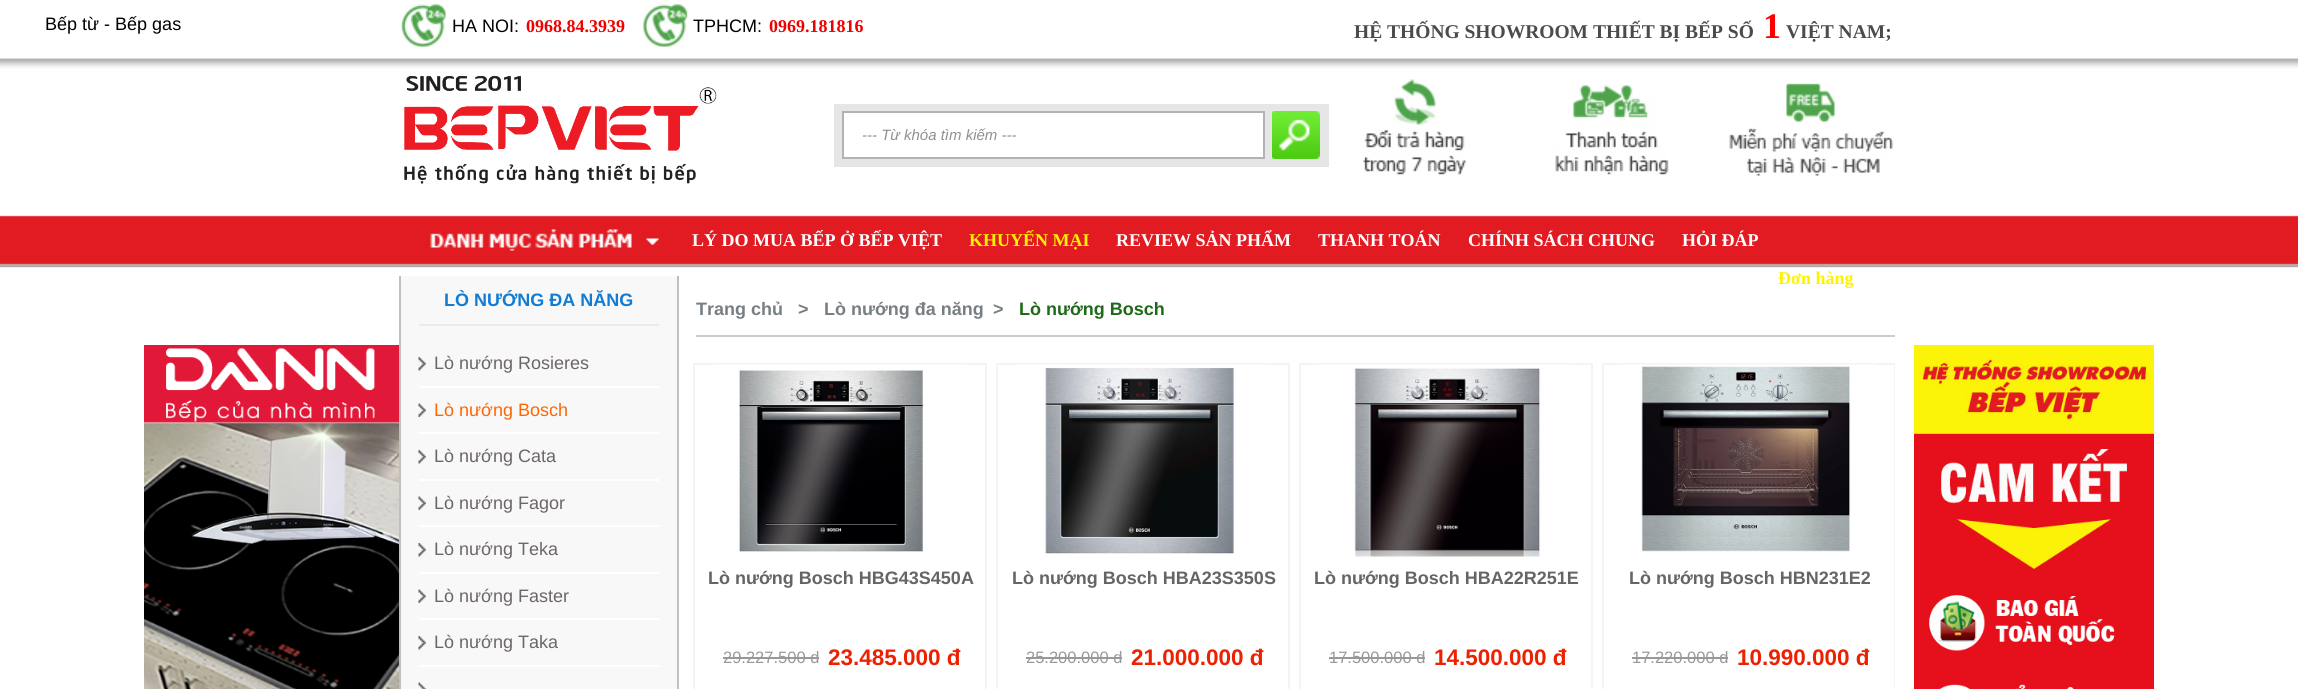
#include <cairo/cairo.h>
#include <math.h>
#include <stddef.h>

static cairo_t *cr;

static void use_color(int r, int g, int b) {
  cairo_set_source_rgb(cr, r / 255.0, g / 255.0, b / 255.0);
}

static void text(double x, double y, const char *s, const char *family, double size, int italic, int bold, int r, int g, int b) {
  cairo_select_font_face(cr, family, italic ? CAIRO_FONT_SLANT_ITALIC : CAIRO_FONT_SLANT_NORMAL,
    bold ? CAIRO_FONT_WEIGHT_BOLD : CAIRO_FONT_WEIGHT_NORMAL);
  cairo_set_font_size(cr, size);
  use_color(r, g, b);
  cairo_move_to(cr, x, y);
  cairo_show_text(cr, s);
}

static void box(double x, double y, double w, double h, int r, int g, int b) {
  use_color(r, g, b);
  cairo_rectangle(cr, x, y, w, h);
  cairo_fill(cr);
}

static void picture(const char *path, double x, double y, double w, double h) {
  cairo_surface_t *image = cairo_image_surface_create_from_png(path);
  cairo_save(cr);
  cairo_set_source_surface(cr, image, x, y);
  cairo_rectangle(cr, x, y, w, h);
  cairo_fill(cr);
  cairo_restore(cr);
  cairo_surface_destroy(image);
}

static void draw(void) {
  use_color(255, 255, 255);
  cairo_paint(cr);
  picture("img_01.png", 0, 58, 2298, 210);
  picture("img_02.png", 401, 4, 45, 43);
  picture("img_03.png", 643, 4, 45, 43);
  picture("img_04.png", 404, 75, 313, 109);
  box(834, 104, 495, 63, 230, 230, 230);
  use_color(255, 255, 255);
  cairo_rectangle(cr, 843, 112, 421, 46);
  cairo_fill_preserve(cr);
  use_color(178, 179, 183);
  cairo_stroke(cr);
  picture("img_05.png", 1272, 111, 48, 48);
  picture("img_06.png", 1363, 79, 531, 97);
  picture("img_07.png", 430, 229, 229, 22);
  picture("img_08.png", 144, 345, 255, 344);
  box(401, 276, 276, 413, 248, 248, 248);
  box(677, 276, 2, 413, 191, 191, 191);
  box(399, 276, 2, 413, 191, 191, 191);
  box(419, 324, 240, 2, 234, 234, 234);
  picture("img_09.png", 418, 357, 8, 14);
  box(419, 386, 240, 2, 255, 255, 255);
  picture("img_10.png", 418, 403, 8, 14);
  box(419, 432, 240, 2, 255, 255, 255);
  picture("img_09.png", 418, 450, 8, 14);
  box(419, 479, 240, 2, 255, 255, 255);
  picture("img_10.png", 418, 496, 8, 14);
  box(419, 525, 240, 2, 255, 255, 255);
  picture("img_09.png", 418, 543, 8, 14);
  box(419, 572, 240, 2, 255, 255, 255);
  picture("img_10.png", 418, 589, 8, 14);
  box(419, 618, 240, 2, 255, 255, 255);
  picture("img_09.png", 418, 636, 8, 14);
  box(419, 665, 240, 2, 255, 255, 255);
  picture("img_11.png", 418, 682, 8, 7);
  box(696, 335, 1199, 2, 204, 204, 204);
  cairo_rectangle(cr, 694, 364, 292, 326);
  use_color(244, 244, 244);
  cairo_stroke(cr);
  picture("img_12.png", 713, 364, 254, 188);
  box(723, 657, 96, 2, 153, 152, 152);
  cairo_rectangle(cr, 997, 364, 292, 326);
  use_color(244, 244, 244);
  cairo_stroke(cr);
  picture("img_13.png", 1016, 364, 254, 190);
  box(1026, 657, 96, 2, 153, 152, 152);
  cairo_rectangle(cr, 1300, 364, 292, 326);
  use_color(244, 244, 244);
  cairo_stroke(cr);
  picture("img_14.png", 1319, 364, 254, 193);
  box(1329, 657, 96, 2, 153, 152, 152);
  cairo_save(cr);
  cairo_rectangle(cr, 693, 276, 1202, 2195);
  cairo_clip(cr);
  cairo_rectangle(cr, 1603, 364, 292, 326);
  use_color(244, 244, 244);
  cairo_stroke(cr);
  cairo_restore(cr);
  picture("img_15.png", 1622, 364, 254, 188);
  box(1632, 657, 96, 2, 153, 152, 152);
  picture("img_16.png", 1914, 345, 240, 344);
  text(45, 30, "Bếp từ - Bếp gas", "Liberation Sans", 18, 0, 0, 0, 0, 0);
  text(452, 32, "HA NOI:", "Liberation Sans", 18, 0, 0, 0, 0, 0);
  text(526, 32, "0968.84.3939", "Liberation Serif", 18, 0, 1, 240, 0, 0);
  text(693, 32, "TPHCM:", "Liberation Sans", 18, 0, 0, 0, 0, 0);
  text(769, 32, "0969.181816", "Liberation Serif", 18, 0, 1, 240, 0, 0);
  text(1354, 38, "HỆ THỐNG SHOWROOM THIẾT BỊ BẾP SỐ", "Liberation Serif", 19.5, 0, 1, 75, 75, 75);
  text(1763, 38, "1", "Liberation Serif", 36, 0, 1, 255, 0, 0);
  text(1786, 38, "VIỆT NAM;", "Liberation Serif", 19.5, 0, 1, 75, 75, 75);
  text(862, 140, "--- Từ khóa tìm kiếm ---", "Liberation Sans", 15, 1, 0, 145, 143, 143);
  text(692, 246, "LÝ DO MUA BẾP Ở BẾP VIỆT", "Liberation Serif", 18, 0, 1, 255, 255, 255);
  text(969, 246, "KHUYẾN MẠI", "Liberation Serif", 18, 0, 1, 254, 242, 0);
  text(1116, 246, "REVIEW SẢN PHẨM", "Liberation Serif", 18, 0, 1, 255, 255, 255);
  text(1318, 246, "THANH TOÁN", "Liberation Serif", 18, 0, 1, 255, 255, 255);
  text(1468, 246, "CHÍNH SÁCH CHUNG", "Liberation Serif", 18, 0, 1, 255, 255, 255);
  text(1682, 246, "HỎI ĐÁP", "Liberation Serif", 18, 0, 1, 255, 255, 255);
  text(1778, 284, "Đơn hàng", "Liberation Serif", 18, 0, 1, 254, 242, 0);
  text(444, 306, "LÒ NƯỚNG ĐA NĂNG", "Liberation Sans", 18, 0, 1, 18, 124, 211);
  text(434, 369, "Lò nướng Rosieres", "Liberation Sans", 18, 0, 0, 109, 102, 102);
  text(434, 416, "Lò nướng Bosch", "Liberation Sans", 18, 0, 0, 255, 102, 0);
  text(434, 462, "Lò nướng Cata", "Liberation Sans", 18, 0, 0, 109, 102, 102);
  text(434, 509, "Lò nướng Fagor", "Liberation Sans", 18, 0, 0, 109, 102, 102);
  text(434, 555, "Lò nướng Teka", "Liberation Sans", 18, 0, 0, 109, 102, 102);
  text(434, 602, "Lò nướng Faster", "Liberation Sans", 18, 0, 0, 109, 102, 102);
  text(434, 648, "Lò nướng Taka", "Liberation Sans", 18, 0, 0, 109, 102, 102);
  text(696, 315, "Trang chủ", "Liberation Sans", 18, 0, 1, 119, 127, 131);
  text(798, 315, ">", "Liberation Sans", 18, 0, 1, 119, 127, 131);
  text(824, 315, "Lò nướng đa năng", "Liberation Sans", 18, 0, 1, 119, 127, 131);
  text(993, 315, ">", "Liberation Sans", 18, 0, 1, 119, 127, 131);
  text(1019, 315, "Lò nướng Bosch", "Liberation Sans", 18, 0, 1, 30, 106, 24);
  text(708, 584, "Lò nướng Bosch HBG43S450A", "Liberation Sans", 18, 0, 1, 101, 101, 101);
  text(723, 663, "29.227.500 d", "Liberation Sans", 16.5, 0, 0, 153, 152, 152);
  text(828, 665, "23.485.000 đ", "Liberation Sans", 22.5, 0, 1, 237, 33, 2);
  text(1012, 584, "Lò nướng Bosch HBA23S350S", "Liberation Sans", 18, 0, 1, 101, 101, 101);
  text(1026, 663, "25.200.000 d", "Liberation Sans", 16.5, 0, 0, 153, 152, 152);
  text(1131, 665, "21.000.000 đ", "Liberation Sans", 22.5, 0, 1, 237, 33, 2);
  text(1314, 584, "Lò nướng Bosch HBA22R251E", "Liberation Sans", 18, 0, 1, 101, 101, 101);
  text(1329, 663, "17.500.000 d", "Liberation Sans", 16.5, 0, 0, 153, 152, 152);
  text(1434, 665, "14.500.000 đ", "Liberation Sans", 22.5, 0, 1, 237, 33, 2);
  text(1629, 584, "Lò nướng Bosch HBN231E2", "Liberation Sans", 18, 0, 1, 101, 101, 101);
  text(1632, 663, "17.220.000 d", "Liberation Sans", 16.5, 0, 0, 153, 152, 152);
  text(1737, 665, "10.990.000 đ", "Liberation Sans", 22.5, 0, 1, 237, 33, 2);
}

int main(void) {
  cairo_surface_t *surface = cairo_image_surface_create(CAIRO_FORMAT_RGB24, 2298, 689);
  cr = cairo_create(surface);
  cairo_font_options_t *options = cairo_font_options_create();
  cairo_font_options_set_hint_metrics(options, CAIRO_HINT_METRICS_OFF);
  cairo_font_options_set_hint_style(options, CAIRO_HINT_STYLE_NONE);
  cairo_set_font_options(cr, options);
  cairo_set_miter_limit(cr, 4);
  draw();
  cairo_surface_write_to_png(surface, "out.png");
  cairo_font_options_destroy(options);
  cairo_destroy(cr);
  cairo_surface_destroy(surface);
  return 0;
}
